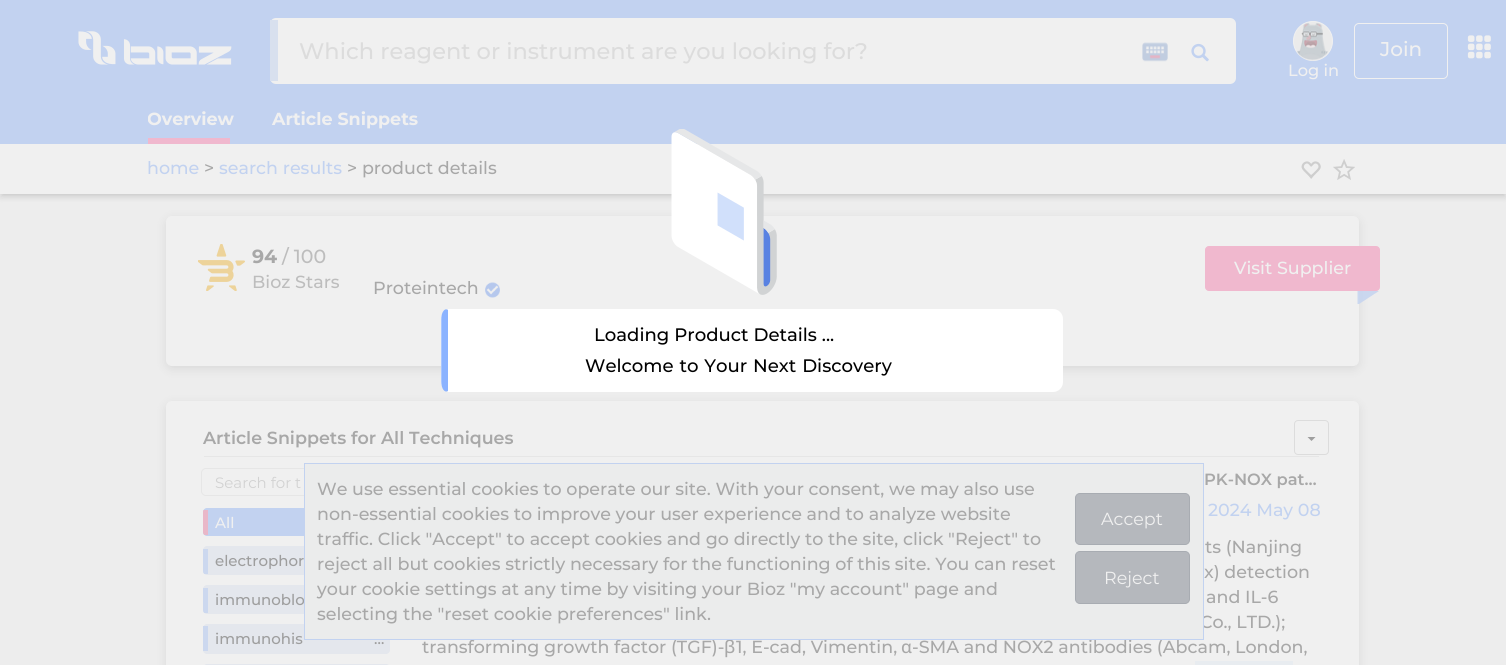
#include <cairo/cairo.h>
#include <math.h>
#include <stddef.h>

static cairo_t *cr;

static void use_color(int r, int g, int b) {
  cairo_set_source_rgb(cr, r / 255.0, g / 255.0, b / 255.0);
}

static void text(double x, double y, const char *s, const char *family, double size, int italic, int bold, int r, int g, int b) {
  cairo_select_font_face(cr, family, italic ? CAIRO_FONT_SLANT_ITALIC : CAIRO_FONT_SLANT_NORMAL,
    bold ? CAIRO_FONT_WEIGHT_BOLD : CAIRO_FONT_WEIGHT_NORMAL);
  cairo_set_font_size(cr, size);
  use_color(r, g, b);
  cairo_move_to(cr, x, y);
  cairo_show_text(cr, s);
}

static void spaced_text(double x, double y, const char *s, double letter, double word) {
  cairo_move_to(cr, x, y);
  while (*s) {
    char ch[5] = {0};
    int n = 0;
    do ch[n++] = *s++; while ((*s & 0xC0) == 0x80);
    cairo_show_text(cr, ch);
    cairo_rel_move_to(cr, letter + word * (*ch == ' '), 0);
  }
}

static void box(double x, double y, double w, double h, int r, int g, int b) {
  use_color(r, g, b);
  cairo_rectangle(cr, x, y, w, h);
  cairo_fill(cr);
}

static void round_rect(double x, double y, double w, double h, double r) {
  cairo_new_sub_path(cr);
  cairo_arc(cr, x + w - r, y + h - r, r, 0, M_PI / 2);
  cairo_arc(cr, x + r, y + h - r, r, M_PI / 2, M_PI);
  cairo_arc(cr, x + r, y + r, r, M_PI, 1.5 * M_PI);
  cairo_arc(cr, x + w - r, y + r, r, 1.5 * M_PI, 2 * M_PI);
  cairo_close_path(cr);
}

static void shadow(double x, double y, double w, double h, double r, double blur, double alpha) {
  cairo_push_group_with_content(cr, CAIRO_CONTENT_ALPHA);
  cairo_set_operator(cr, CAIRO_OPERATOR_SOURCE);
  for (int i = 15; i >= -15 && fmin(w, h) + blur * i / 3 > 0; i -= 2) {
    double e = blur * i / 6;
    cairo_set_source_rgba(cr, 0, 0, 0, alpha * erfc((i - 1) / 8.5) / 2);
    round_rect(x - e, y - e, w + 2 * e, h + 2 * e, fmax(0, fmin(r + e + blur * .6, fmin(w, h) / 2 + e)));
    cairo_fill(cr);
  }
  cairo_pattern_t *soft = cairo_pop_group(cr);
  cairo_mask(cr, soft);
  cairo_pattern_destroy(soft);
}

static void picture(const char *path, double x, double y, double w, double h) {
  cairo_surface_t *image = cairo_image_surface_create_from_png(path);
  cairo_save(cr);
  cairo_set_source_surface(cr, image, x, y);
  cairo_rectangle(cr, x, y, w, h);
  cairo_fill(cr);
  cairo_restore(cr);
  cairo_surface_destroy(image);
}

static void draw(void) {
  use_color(237, 237, 237);
  cairo_paint(cr);
  use_color(138, 138, 138);
  shadow(0, 1, 1506, 194, 0, 5, 0.12);
  shadow(3, 6, 1501, 189, 0, 2, 0.2);
  shadow(0, 4, 1506, 194, 0, 2.5, 0.14);
  box(0, 0, 1506, 144, 194, 210, 240);
  picture("img_01.png", 78, 31, 154, 34);
  use_color(240, 240, 240);
  round_rect(270, 18, 966, 66, 6);
  cairo_fill(cr);
  box(270, 20, 8, 61, 216, 224, 238);
  picture("img_02.png", 1142, 42, 26, 20);
  picture("img_03.png", 1191, 43, 18, 19);
  round_rect(1354.5, 23.5, 93, 55, 4.5);
  use_color(240, 240, 240);
  cairo_set_line_width(cr, 1);
  cairo_stroke(cr);
  use_color(235, 235, 235);
  cairo_arc(cr, 1313, 41, 19.5, 0, 2 * M_PI);
  cairo_fill_preserve(cr);
  use_color(240, 240, 240);
  cairo_stroke(cr);
  picture("img_04.png", 1296, 22, 32, 39);
  picture("img_05.png", 1467, 35, 24, 24);
  box(148, 138, 82, 6, 240, 184, 206);
  box(0, 144, 1506, 50, 240, 240, 240);
  picture("img_06.png", 1301, 161, 20, 18);
  picture("img_07.png", 1333, 159, 22, 21);
  use_color(138, 138, 138);
  shadow(166, 219, 1193, 150, 6, 5, 0.2);
  use_color(240, 240, 240);
  round_rect(166.5, 216.5, 1192, 149, 5.5);
  cairo_fill_preserve(cr);
  cairo_stroke(cr);
  picture("img_08.png", 198, 244, 47, 47);
  use_color(240, 184, 206);
  round_rect(1205.5, 246.5, 174, 44, 3.5);
  cairo_fill_preserve(cr);
  cairo_stroke(cr);
  cairo_set_source_rgba(cr, 0.761, 0.824, 0.941, 0.8);
  cairo_new_path(cr);
  cairo_move_to(cr, 1357.5, 291);
  cairo_line_to(cr, 1379, 291);
  cairo_line_to(cr, 1359, 304);
  cairo_line_to(cr, 1357.5, 304);
  cairo_close_path(cr);
  cairo_fill(cr);
  picture("img_09.png", 485, 282, 15, 16);
  use_color(138, 138, 138);
  shadow(166, 404, 1193, 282, 6, 5, 0.2);
  use_color(240, 240, 240);
  round_rect(166, 401, 1193, 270, 6);
  cairo_fill(cr);
  box(204, 456, 1115, 1, 230, 230, 230);
  round_rect(1294.5, 420.5, 34, 34, 3.5);
  use_color(220, 220, 220);
  cairo_stroke(cr);
  use_color(158, 158, 158);
  cairo_new_path(cr);
  cairo_move_to(cr, 1307.5, 437);
  cairo_line_to(cr, 1315.5, 437);
  cairo_line_to(cr, 1311.5, 441);
  cairo_close_path(cr);
  cairo_fill(cr);
  box(1195, 661, 98, 4, 232, 236, 240);
  round_rect(201.5, 468.5, 187, 27, 4.5);
  use_color(230, 230, 230);
  cairo_stroke(cr);
  use_color(194, 210, 240);
  round_rect(203, 508, 187, 28, 4);
  cairo_fill(cr);
  cairo_save(cr);
  round_rect(203, 508, 187, 28, 4);
  cairo_clip(cr);
  box(203, 510, 5, 25, 233, 183, 200);
  cairo_restore(cr);
  use_color(228, 231, 237);
  round_rect(203, 546, 187, 29, 4);
  cairo_fill(cr);
  cairo_save(cr);
  round_rect(203, 546, 187, 29, 4);
  cairo_clip(cr);
  box(203, 549, 5, 25, 204, 216, 239);
  cairo_restore(cr);
  round_rect(203, 585, 187, 29, 4);
  cairo_fill(cr);
  cairo_save(cr);
  round_rect(203, 585, 187, 29, 4);
  cairo_clip(cr);
  box(203, 588, 5, 25, 204, 216, 239);
  cairo_restore(cr);
  round_rect(203, 624, 187, 30, 4);
  cairo_fill(cr);
  box(203, 626, 5, 25, 204, 216, 239);
  use_color(228, 231, 237);
  round_rect(203, 664, 187, 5, 4);
  cairo_fill(cr);
  text(299, 59, "Which reagent or instrument are you looking for?", "Montserrat Medium", 22.5, 0, 0, 220, 220, 220);
  text(1380, 56, "Join", "Montserrat Medium", 20, 0, 0, 240, 240, 240);
  text(1288, 76, "Log in", "Montserrat Medium", 16.25, 0, 0, 240, 240, 240);
  cairo_save(cr);
  cairo_rectangle(cr, 148, 101, 123, 43);
  cairo_clip(cr);
  text(147, 125, "Overview", "Montserrat", 17.5, 0, 1, 240, 240, 240);
  cairo_restore(cr);
  text(272, 125, "Article Snippets", "Montserrat", 17.5, 0, 1, 240, 240, 240);
  text(147, 174, "home", "Montserrat Medium", 17.5, 0, 0, 194, 210, 240);
  text(204, 174, ">", "Montserrat Medium", 17.5, 0, 0, 168, 168, 168);
  text(219, 174, "search results", "Montserrat Medium", 17.5, 0, 0, 194, 210, 240);
  text(347, 174, "> product details", "Montserrat Medium", 17.5, 0, 0, 168, 168, 168);
  text(252, 263, "94", "Montserrat", 19, 0, 1, 168, 168, 168);
  text(282, 263, "/ 100", "Montserrat Medium", 19, 0, 0, 189, 189, 189);
  text(252, 288, "Bioz Stars", "Montserrat Medium", 17.5, 0, 0, 189, 189, 189);
  text(1234, 274, "Visit Supplier", "Montserrat Medium", 17.5, 0, 0, 240, 240, 240);
  text(373, 294, "Proteintech", "Montserrat Medium", 17.5, 0, 0, 168, 168, 168);
  text(203, 444, "Article Snippets for All Techniques", "Montserrat SemiBold", 17.5, 0, 0, 168, 168, 168);
  text(1204, 485, "PK-NOX pat…", "Montserrat SemiBold", 16.25, 0, 0, 168, 168, 168);
  text(1208, 516, "2024 May 08", "Montserrat Medium", 17.5, 0, 0, 194, 210, 240);
  text(1205, 553, "ts (Nanjing", "Montserrat Medium", 17.5, 0, 0, 168, 168, 168);
  text(1204, 578, "x) detection", "Montserrat Medium", 17.5, 0, 0, 168, 168, 168);
  text(1206, 603, "and IL-6", "Montserrat Medium", 17.5, 0, 0, 168, 168, 168);
  text(1200, 628, "Co., LTD.);", "Montserrat Medium", 17.5, 0, 0, 168, 168, 168);
  text(422, 653, "transforming growth factor (TGF)-", "Montserrat Medium", 17.5, 0, 0, 168, 168, 168);
  text(724, 653, "β", "Open Sans Medium", 17.5, 0, 0, 168, 168, 168);
  text(736, 653, "1, E-cad, Vimentin,", "Montserrat Medium", 17.5, 0, 0, 168, 168, 168);
  text(901, 653, "α", "Open Sans Medium", 17.5, 0, 0, 168, 168, 168);
  text(912, 653, "-SMA and NOX2 antibodies (Abcam, London,", "Montserrat Medium", 17.5, 0, 0, 168, 168, 168);
  text(215, 488, "Search for t", "Montserrat", 15, 0, 0, 210, 210, 210);
  text(215, 528, "All", "Montserrat Medium", 15, 0, 0, 240, 240, 240);
  text(215, 566, "electrophor", "Montserrat Medium", 15, 0, 0, 158, 158, 158);
  text(215, 605, "immunoblo", "Montserrat Medium", 15, 0, 0, 158, 158, 158);
  text(215, 644, "immunohis", "Montserrat Medium", 15, 0, 0, 158, 158, 158);
  text(374, 644, "…", "Montserrat Medium", 15, 0, 0, 158, 158, 158);
  picture("img_10.png", 441, 129, 622, 263);
  text(594, 341, "Loading Product Details ...", "Montserrat Medium", 18.1, 0, 0, 0, 0, 0);
  spaced_text(585, 372, "Welcome to Your Next Discovery", 0, 1);
  use_color(235, 236, 236);
  cairo_rectangle(cr, 304.5, 463.5, 899, 176);
  cairo_fill_preserve(cr);
  use_color(194, 210, 240);
  cairo_stroke(cr);
  text(317, 495, "We use essential cookies to operate our site. With your consent, we may also use", "Montserrat Medium", 17.5, 0, 0, 168, 168, 168);
  text(317, 520, "non-essential cookies to improve your user experience and to analyze website", "Montserrat Medium", 17.5, 0, 0, 168, 168, 168);
  text(317, 545, "traffic. Click \"Accept\" to accept cookies and go directly to the site, click \"Reject\" to", "Montserrat Medium", 17.5, 0, 0, 168, 168, 168);
  text(317, 570, "reject all but cookies strictly necessary for the functioning of this site. You can reset", "Montserrat Medium", 17.5, 0, 0, 168, 168, 168);
  text(317, 595, "your cookie settings at any time by visiting your Bioz \"my account\" page and", "Montserrat Medium", 17.5, 0, 0, 168, 168, 168);
  text(317, 620, "selecting the \"reset cookie preferences\" link.", "Montserrat Medium", 17.5, 0, 0, 168, 168, 168);
  use_color(181, 184, 189);
  round_rect(1075.5, 493.5, 114, 51, 4.5);
  cairo_fill_preserve(cr);
  use_color(168, 172, 178);
  cairo_stroke(cr);
  text(1101, 525, "Accept", "Montserrat", 17.5, 0, 0, 240, 240, 240);
  use_color(181, 184, 189);
  round_rect(1075.5, 551.5, 114, 52, 4.5);
  cairo_fill_preserve(cr);
  use_color(168, 172, 178);
  cairo_stroke(cr);
  text(1104, 584, "Reject", "Montserrat", 17.5, 0, 0, 240, 240, 240);
}

int main(void) {
  cairo_surface_t *surface = cairo_image_surface_create(CAIRO_FORMAT_RGB24, 1506, 665);
  cr = cairo_create(surface);
  cairo_font_options_t *options = cairo_font_options_create();
  cairo_font_options_set_hint_metrics(options, CAIRO_HINT_METRICS_OFF);
  cairo_font_options_set_hint_style(options, CAIRO_HINT_STYLE_NONE);
  cairo_set_font_options(cr, options);
  cairo_set_miter_limit(cr, 4);
  draw();
  cairo_surface_write_to_png(surface, "out.png");
  cairo_font_options_destroy(options);
  cairo_destroy(cr);
  cairo_surface_destroy(surface);
  return 0;
}
